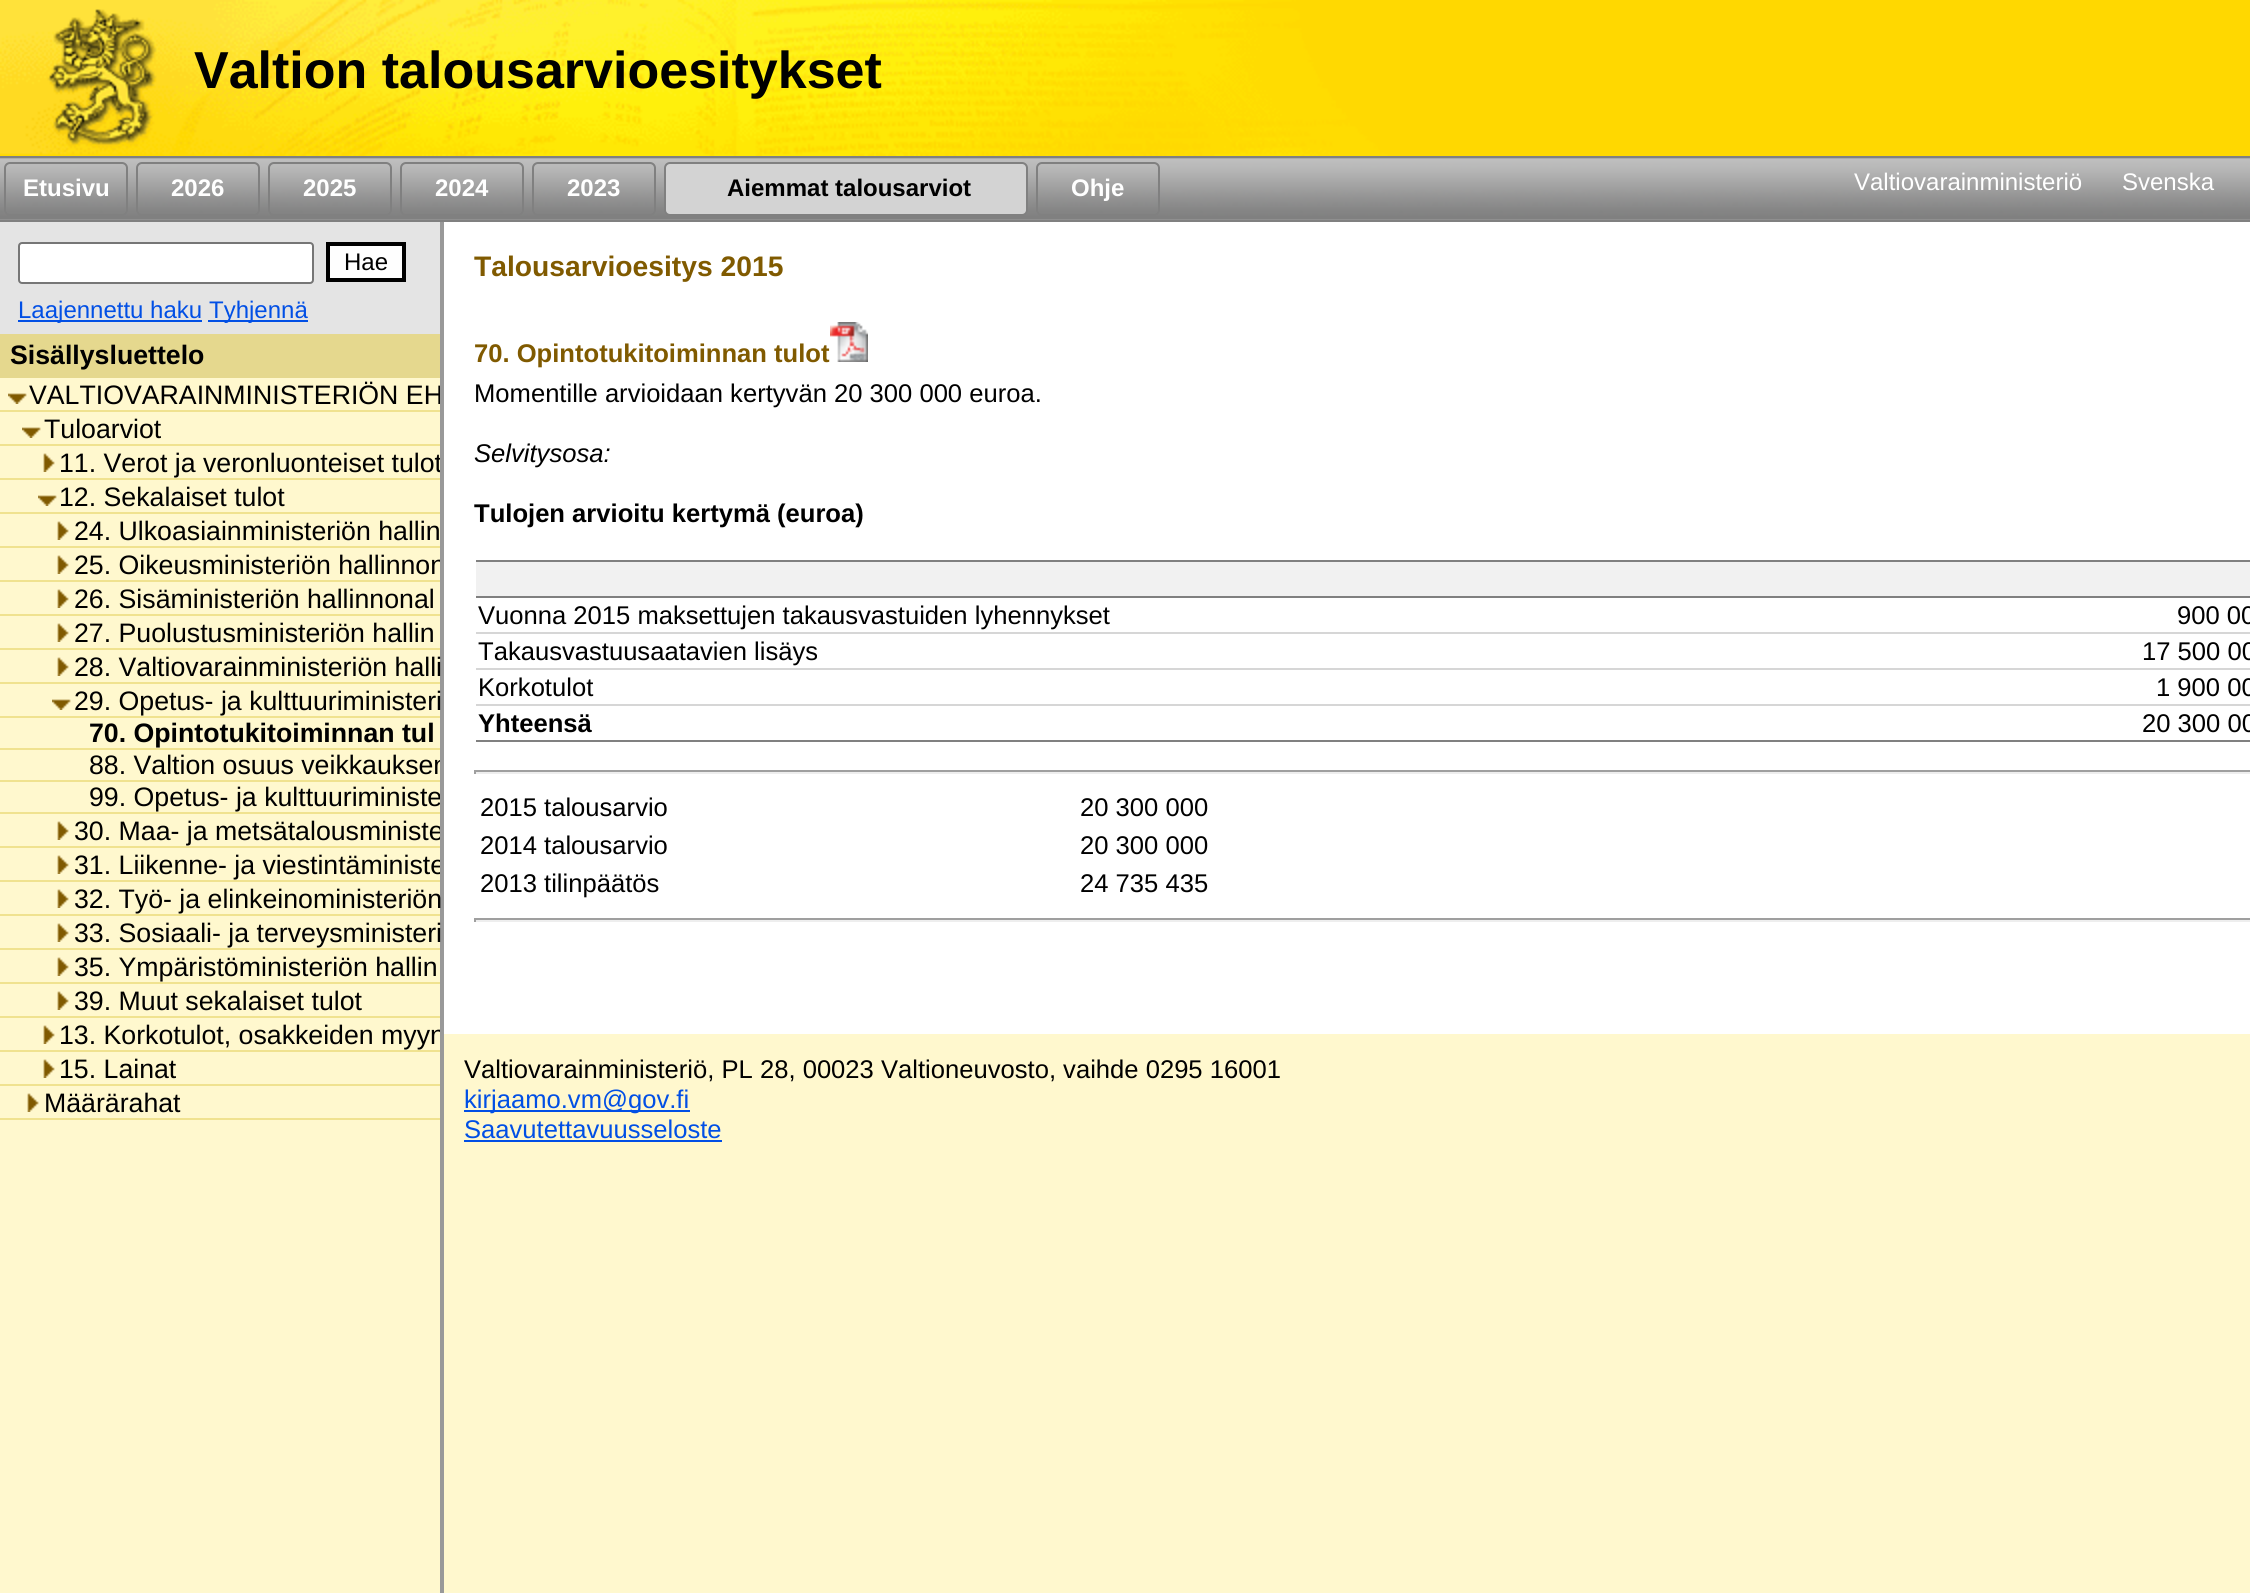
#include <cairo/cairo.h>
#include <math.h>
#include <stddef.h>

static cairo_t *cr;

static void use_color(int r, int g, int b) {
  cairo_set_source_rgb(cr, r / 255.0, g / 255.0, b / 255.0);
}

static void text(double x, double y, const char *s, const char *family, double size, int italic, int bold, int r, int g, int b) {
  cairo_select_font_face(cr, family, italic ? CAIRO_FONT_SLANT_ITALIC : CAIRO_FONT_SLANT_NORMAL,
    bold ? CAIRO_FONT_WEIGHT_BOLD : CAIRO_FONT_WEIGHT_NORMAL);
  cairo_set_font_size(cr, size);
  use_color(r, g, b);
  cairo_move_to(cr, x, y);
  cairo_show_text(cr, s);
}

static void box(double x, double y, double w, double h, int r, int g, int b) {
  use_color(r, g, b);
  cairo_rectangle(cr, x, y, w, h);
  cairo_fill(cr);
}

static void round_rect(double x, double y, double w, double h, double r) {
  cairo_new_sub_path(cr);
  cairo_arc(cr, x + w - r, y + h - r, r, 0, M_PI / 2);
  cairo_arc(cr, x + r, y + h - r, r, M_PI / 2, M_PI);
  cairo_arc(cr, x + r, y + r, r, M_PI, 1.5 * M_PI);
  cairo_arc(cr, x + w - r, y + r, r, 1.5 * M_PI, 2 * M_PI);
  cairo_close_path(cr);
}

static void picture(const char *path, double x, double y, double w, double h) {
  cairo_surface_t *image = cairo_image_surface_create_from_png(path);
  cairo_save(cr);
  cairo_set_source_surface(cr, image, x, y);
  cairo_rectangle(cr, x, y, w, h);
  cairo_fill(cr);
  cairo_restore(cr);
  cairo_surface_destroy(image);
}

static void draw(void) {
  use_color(255, 248, 206);
  cairo_paint(cr);
  picture("img_01.png", 0, 0, 1400, 156);
  box(1400, 0, 850, 156, 255, 216, 0);
  picture("img_02.png", 0, 158, 2250, 62);
  box(0, 156, 2250, 2, 128, 128, 128);
  box(440, 220, 4, 1373, 153, 153, 153);
  box(0, 220, 2250, 2, 128, 128, 128);
  round_rect(5, 163, 122, 52, 5);
  cairo_stroke(cr);
  round_rect(137, 163, 122, 52, 5);
  cairo_stroke(cr);
  round_rect(269, 163, 122, 52, 5);
  cairo_stroke(cr);
  round_rect(401, 163, 122, 52, 5);
  cairo_stroke(cr);
  round_rect(533, 163, 122, 52, 5);
  cairo_stroke(cr);
  use_color(211, 211, 211);
  round_rect(665, 163, 362, 52, 5);
  cairo_fill_preserve(cr);
  use_color(128, 128, 128);
  cairo_stroke(cr);
  round_rect(1037, 163, 122, 52, 5);
  cairo_stroke(cr);
  box(0, 222, 440, 112, 228, 228, 228);
  use_color(255, 255, 255);
  round_rect(19, 243, 294, 40, 3);
  cairo_fill_preserve(cr);
  use_color(118, 118, 118);
  cairo_stroke(cr);
  use_color(254, 254, 254);
  cairo_rectangle(cr, 328, 244, 76, 36);
  cairo_fill_preserve(cr);
  use_color(0, 0, 0);
  cairo_set_line_width(cr, 4);
  cairo_stroke(cr);
  box(18, 320, 184, 2, 1, 79, 229);
  box(208, 320, 100, 2, 1, 79, 229);
  box(0, 334, 440, 44, 229, 216, 142);
  box(0, 410, 440, 2, 240, 226, 143);
  picture("img_03.png", 8, 393, 19, 11);
  box(0, 444, 440, 2, 240, 226, 143);
  picture("img_03.png", 22, 427, 19, 11);
  box(0, 478, 440, 2, 240, 226, 143);
  picture("img_04.png", 43, 453, 12, 19);
  box(0, 512, 440, 2, 240, 226, 143);
  picture("img_03.png", 38, 495, 19, 11);
  box(0, 546, 440, 2, 240, 226, 143);
  picture("img_04.png", 57, 521, 12, 19);
  box(0, 580, 440, 2, 240, 226, 143);
  picture("img_04.png", 57, 555, 12, 19);
  box(0, 614, 440, 2, 240, 226, 143);
  picture("img_04.png", 57, 589, 12, 19);
  box(0, 648, 440, 2, 240, 226, 143);
  picture("img_04.png", 57, 623, 12, 19);
  box(0, 682, 440, 2, 240, 226, 143);
  picture("img_04.png", 57, 657, 12, 19);
  box(0, 716, 440, 2, 240, 226, 143);
  picture("img_03.png", 52, 699, 19, 11);
  box(0, 748, 440, 2, 240, 226, 143);
  box(0, 780, 440, 2, 240, 226, 143);
  box(0, 812, 440, 2, 240, 226, 143);
  box(0, 846, 440, 2, 240, 226, 143);
  picture("img_04.png", 57, 821, 12, 19);
  box(0, 880, 440, 2, 240, 226, 143);
  picture("img_04.png", 57, 855, 12, 19);
  box(0, 914, 440, 2, 240, 226, 143);
  picture("img_04.png", 57, 889, 12, 19);
  box(0, 948, 440, 2, 240, 226, 143);
  picture("img_04.png", 57, 923, 12, 19);
  box(0, 982, 440, 2, 240, 226, 143);
  picture("img_04.png", 57, 957, 12, 19);
  box(0, 1016, 440, 2, 240, 226, 143);
  picture("img_04.png", 57, 991, 12, 19);
  box(0, 1050, 440, 2, 240, 226, 143);
  picture("img_04.png", 43, 1025, 12, 19);
  box(0, 1084, 440, 2, 240, 226, 143);
  picture("img_04.png", 43, 1059, 12, 19);
  box(0, 1118, 440, 2, 240, 226, 143);
  picture("img_04.png", 27, 1093, 12, 19);
  box(444, 222, 1806, 812, 255, 255, 255);
  picture("img_05.png", 830, 322, 38, 40);
  box(476, 562, 1774, 34, 241, 241, 241);
  box(476, 560, 1774, 2, 128, 128, 128);
  box(476, 596, 1774, 2, 128, 128, 128);
  box(476, 632, 1774, 2, 214, 214, 214);
  box(476, 668, 1774, 2, 214, 214, 214);
  box(476, 704, 1774, 2, 214, 214, 214);
  box(476, 740, 1774, 2, 128, 128, 128);
  box(474, 770, 1776, 2, 159, 159, 159);
  box(474, 772, 1776, 2, 238, 238, 238);
  box(474, 770, 2, 4, 159, 159, 159);
  box(474, 918, 1776, 2, 159, 159, 159);
  box(474, 920, 1776, 2, 238, 238, 238);
  box(474, 918, 2, 4, 159, 159, 159);
  box(464, 1110, 226, 2, 1, 79, 229);
  box(464, 1140, 258, 2, 1, 79, 229);
  text(194, 88, "Valtion talousarvioesitykset", "Liberation Sans", 52, 0, 1, 0, 0, 0);
  text(23, 196, "Etusivu", "Liberation Sans", 24, 0, 1, 255, 255, 255);
  text(171, 196, "2026", "Liberation Sans", 24, 0, 1, 255, 255, 255);
  text(303, 196, "2025", "Liberation Sans", 24, 0, 1, 255, 255, 255);
  text(435, 196, "2024", "Liberation Sans", 24, 0, 1, 255, 255, 255);
  text(567, 196, "2023", "Liberation Sans", 24, 0, 1, 255, 255, 255);
  text(727, 196, "Aiemmat talousarviot", "Liberation Sans", 24, 0, 1, 0, 0, 0);
  text(1071, 196, "Ohje", "Liberation Sans", 24, 0, 1, 255, 255, 255);
  text(1854, 190, "Valtiovarainministeriö", "Liberation Sans", 24, 0, 0, 255, 255, 255);
  text(2122, 190, "Svenska", "Liberation Sans", 24, 0, 0, 255, 255, 255);
  text(344, 270, "Hae", "Liberation Sans", 24, 0, 0, 0, 0, 0);
  text(18, 318, "Laajennettu haku", "Liberation Sans", 24, 0, 0, 1, 79, 229);
  text(209, 318, "Tyhjennä", "Liberation Sans", 24, 0, 0, 1, 79, 229);
  text(10, 364, "Sisällysluettelo", "Liberation Sans", 26.7, 0, 1, 0, 0, 0);
  cairo_save(cr);
  cairo_rectangle(cr, 0, 334, 440, 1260);
  cairo_clip(cr);
  text(29, 404, "VALTIOVARAINMINISTERIÖN EH", "Liberation Sans", 26.7, 0, 0, 0, 0, 0);
  cairo_restore(cr);
  text(44, 438, "Tuloarviot", "Liberation Sans", 26.7, 0, 0, 0, 0, 0);
  cairo_save(cr);
  cairo_rectangle(cr, 0, 334, 440, 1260);
  cairo_clip(cr);
  text(59, 472, "11. Verot ja veronluonteiset tulot", "Liberation Sans", 26.7, 0, 0, 0, 0, 0);
  cairo_restore(cr);
  text(59, 506, "12. Sekalaiset tulot", "Liberation Sans", 26.7, 0, 0, 0, 0, 0);
  text(74, 540, "24. Ulkoasiainministeriön hallin", "Liberation Sans", 26.7, 0, 0, 0, 0, 0);
  cairo_save(cr);
  cairo_rectangle(cr, 0, 334, 440, 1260);
  cairo_clip(cr);
  text(74, 574, "25. Oikeusministeriön hallinnon", "Liberation Sans", 26.7, 0, 0, 0, 0, 0);
  cairo_restore(cr);
  text(74, 608, "26. Sisäministeriön hallinnonal", "Liberation Sans", 26.7, 0, 0, 0, 0, 0);
  text(74, 642, "27. Puolustusministeriön hallin", "Liberation Sans", 26.7, 0, 0, 0, 0, 0);
  text(74, 676, "28. Valtiovarainministeriön halli", "Liberation Sans", 26.7, 0, 0, 0, 0, 0);
  text(74, 710, "29. Opetus- ja kulttuuriministeri", "Liberation Sans", 26.7, 0, 0, 0, 0, 0);
  text(89, 742, "70. Opintotukitoiminnan tul", "Liberation Sans", 26.7, 0, 1, 0, 0, 0);
  cairo_save(cr);
  cairo_rectangle(cr, 0, 334, 440, 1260);
  cairo_clip(cr);
  text(89, 774, "88. Valtion osuus veikkauksen", "Liberation Sans", 26.7, 0, 0, 0, 0, 0);
  text(89, 806, "99. Opetus- ja kulttuuriministe", "Liberation Sans", 26.7, 0, 0, 0, 0, 0);
  text(74, 840, "30. Maa- ja metsätalousministe", "Liberation Sans", 26.7, 0, 0, 0, 0, 0);
  text(74, 874, "31. Liikenne- ja viestintäministe", "Liberation Sans", 26.7, 0, 0, 0, 0, 0);
  cairo_restore(cr);
  text(74, 908, "32. Työ- ja elinkeinoministeriön", "Liberation Sans", 26.7, 0, 0, 0, 0, 0);
  text(74, 942, "33. Sosiaali- ja terveysministeri", "Liberation Sans", 26.7, 0, 0, 0, 0, 0);
  text(74, 976, "35. Ympäristöministeriön hallin", "Liberation Sans", 26.7, 0, 0, 0, 0, 0);
  text(74, 1010, "39. Muut sekalaiset tulot", "Liberation Sans", 26.7, 0, 0, 0, 0, 0);
  cairo_save(cr);
  cairo_rectangle(cr, 0, 334, 440, 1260);
  cairo_clip(cr);
  text(59, 1044, "13. Korkotulot, osakkeiden myyn", "Liberation Sans", 26.7, 0, 0, 0, 0, 0);
  cairo_restore(cr);
  text(59, 1078, "15. Lainat", "Liberation Sans", 26.7, 0, 0, 0, 0, 0);
  text(44, 1112, "Määrärahat", "Liberation Sans", 26.7, 0, 0, 0, 0, 0);
  text(474, 276, "Talousarvioesitys 2015", "Liberation Sans", 28.25, 0, 1, 128, 90, 0);
  text(474, 362, "70. Opintotukitoiminnan tulot", "Liberation Sans", 25.6, 0, 1, 128, 90, 0);
  text(474, 402, "Momentille arvioidaan kertyvän 20 300 000 euroa.", "Liberation Sans", 25.6, 0, 0, 0, 0, 0);
  text(474, 462, "Selvitysosa:", "Liberation Sans", 25.6, 1, 0, 0, 0, 0);
  text(474, 522, "Tulojen arvioitu kertymä (euroa)", "Liberation Sans", 25.6, 0, 1, 0, 0, 0);
  text(478, 624, "Vuonna 2015 maksettujen takausvastuiden lyhennykset", "Liberation Sans", 25.6, 0, 0, 0, 0, 0);
  text(2177, 624, "900 00", "Liberation Sans", 25.6, 0, 0, 0, 0, 0);
  text(478, 660, "Takausvastuusaatavien lisäys", "Liberation Sans", 25.6, 0, 0, 0, 0, 0);
  text(2142, 660, "17 500 00", "Liberation Sans", 25.6, 0, 0, 0, 0, 0);
  text(478, 696, "Korkotulot", "Liberation Sans", 25.6, 0, 0, 0, 0, 0);
  text(2156, 696, "1 900 00", "Liberation Sans", 25.6, 0, 0, 0, 0, 0);
  text(478, 732, "Yhteensä", "Liberation Sans", 25.6, 0, 1, 0, 0, 0);
  text(2142, 732, "20 300 00", "Liberation Sans", 25.6, 0, 0, 0, 0, 0);
  text(480, 816, "2015 talousarvio", "Liberation Sans", 25.6, 0, 0, 0, 0, 0);
  text(1080, 816, "20 300 000", "Liberation Sans", 25.6, 0, 0, 0, 0, 0);
  text(480, 854, "2014 talousarvio", "Liberation Sans", 25.6, 0, 0, 0, 0, 0);
  text(1080, 854, "20 300 000", "Liberation Sans", 25.6, 0, 0, 0, 0, 0);
  text(480, 892, "2013 tilinpäätös", "Liberation Sans", 25.6, 0, 0, 0, 0, 0);
  text(1080, 892, "24 735 435", "Liberation Sans", 25.6, 0, 0, 0, 0, 0);
  text(464, 1078, "Valtiovarainministeriö, PL 28, 00023 Valtioneuvosto, vaihde 0295 16001", "Liberation Sans", 25.6, 0, 0, 0, 0, 0);
  text(464, 1108, "kirjaamo.vm@gov.fi", "Liberation Sans", 25.6, 0, 0, 1, 79, 229);
  text(464, 1138, "Saavutettavuusseloste", "Liberation Sans", 25.6, 0, 0, 1, 79, 229);
}

int main(void) {
  cairo_surface_t *surface = cairo_image_surface_create(CAIRO_FORMAT_RGB24, 2250, 1593);
  cr = cairo_create(surface);
  cairo_font_options_t *options = cairo_font_options_create();
  cairo_font_options_set_hint_metrics(options, CAIRO_HINT_METRICS_OFF);
  cairo_font_options_set_hint_style(options, CAIRO_HINT_STYLE_NONE);
  cairo_set_font_options(cr, options);
  cairo_set_miter_limit(cr, 4);
  draw();
  cairo_surface_write_to_png(surface, "out.png");
  cairo_font_options_destroy(options);
  cairo_destroy(cr);
  cairo_surface_destroy(surface);
  return 0;
}
